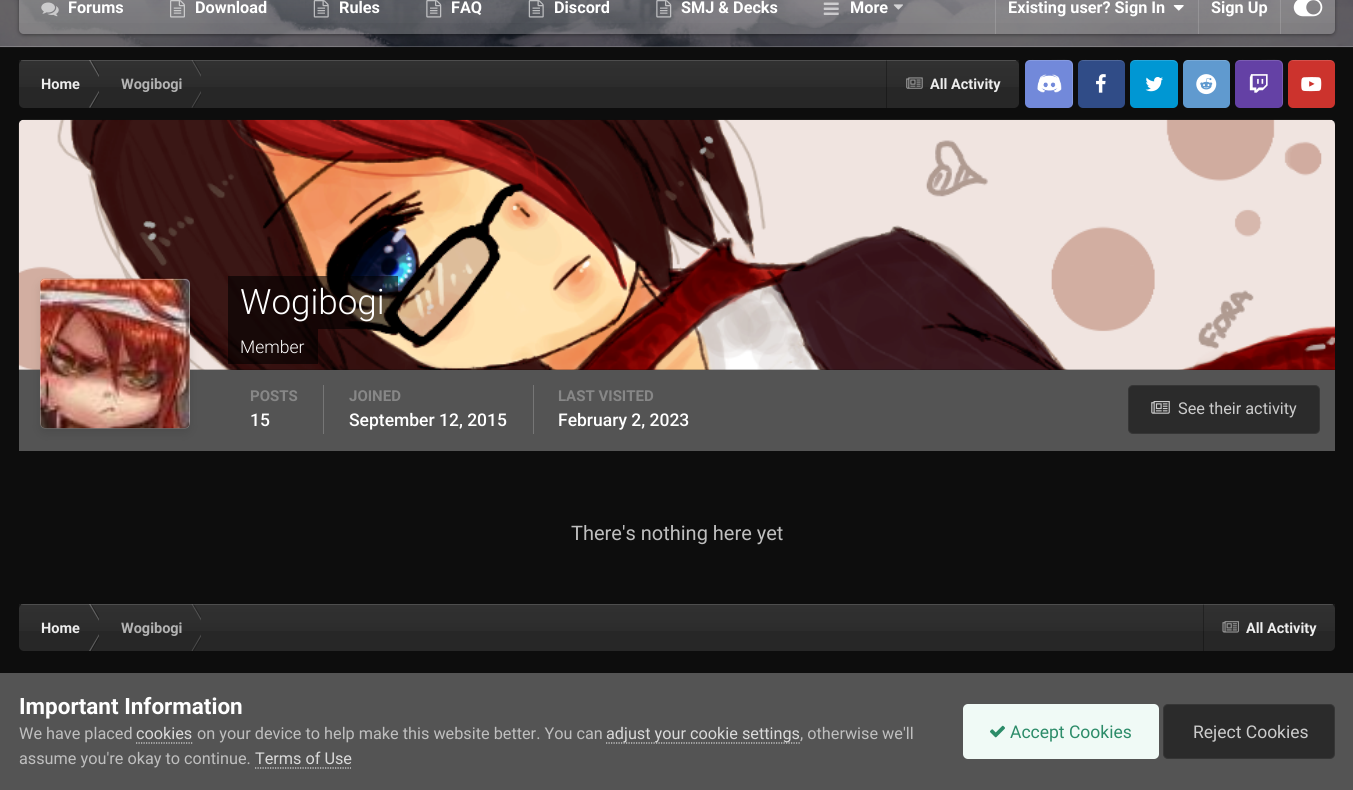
#include <cairo/cairo.h>
#include <math.h>
#include <stddef.h>

static cairo_t *cr;

static void use_color(int r, int g, int b) {
  cairo_set_source_rgb(cr, r / 255.0, g / 255.0, b / 255.0);
}

static void text(double x, double y, const char *s, const char *family, double size, int italic, int bold, int r, int g, int b) {
  cairo_select_font_face(cr, family, italic ? CAIRO_FONT_SLANT_ITALIC : CAIRO_FONT_SLANT_NORMAL,
    bold ? CAIRO_FONT_WEIGHT_BOLD : CAIRO_FONT_WEIGHT_NORMAL);
  cairo_set_font_size(cr, size);
  use_color(r, g, b);
  cairo_move_to(cr, x, y);
  cairo_show_text(cr, s);
}

static void box(double x, double y, double w, double h, int r, int g, int b) {
  use_color(r, g, b);
  cairo_rectangle(cr, x, y, w, h);
  cairo_fill(cr);
}

static void round_rect(double x, double y, double w, double h, double r) {
  cairo_new_sub_path(cr);
  cairo_arc(cr, x + w - r, y + h - r, r, 0, M_PI / 2);
  cairo_arc(cr, x + r, y + h - r, r, M_PI / 2, M_PI);
  cairo_arc(cr, x + r, y + r, r, M_PI, 1.5 * M_PI);
  cairo_arc(cr, x + w - r, y + r, r, 1.5 * M_PI, 2 * M_PI);
  cairo_close_path(cr);
}

static void shadow(double x, double y, double w, double h, double r, double blur, double alpha) {
  cairo_push_group_with_content(cr, CAIRO_CONTENT_ALPHA);
  cairo_set_operator(cr, CAIRO_OPERATOR_SOURCE);
  for (int i = 15; i >= -15 && fmin(w, h) + blur * i / 3 > 0; i -= 2) {
    double e = blur * i / 6;
    cairo_set_source_rgba(cr, 0, 0, 0, alpha * erfc((i - 1) / 8.5) / 2);
    round_rect(x - e, y - e, w + 2 * e, h + 2 * e, fmax(0, fmin(r + e + blur * .6, fmin(w, h) / 2 + e)));
    cairo_fill(cr);
  }
  cairo_pattern_t *soft = cairo_pop_group(cr);
  cairo_mask(cr, soft);
  cairo_pattern_destroy(soft);
}

static void picture(const char *path, double x, double y, double w, double h) {
  cairo_surface_t *image = cairo_image_surface_create_from_png(path);
  cairo_save(cr);
  cairo_set_source_surface(cr, image, x, y);
  cairo_rectangle(cr, x, y, w, h);
  cairo_fill(cr);
  cairo_restore(cr);
  cairo_surface_destroy(image);
}

static void draw(void) {
  cairo_pattern_t *gradient;
  use_color(13, 13, 13);
  cairo_paint(cr);
  picture("img_01.png", 0, 0, 1353, 48);
  picture("img_02.png", 0, 0, 1353, 48);
  cairo_set_source_rgba(cr, 1, 1, 1, 0.2);
  cairo_rectangle(cr, 0, 46, 1353, 1);
  cairo_fill(cr);
  cairo_save(cr);
  cairo_set_fill_rule(cr, CAIRO_FILL_RULE_EVEN_ODD);
  cairo_new_path(cr);
  cairo_move_to(cr, 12, 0);
  cairo_line_to(cr, 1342, 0);
  cairo_line_to(cr, 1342, 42);
  cairo_line_to(cr, 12, 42);
  cairo_close_path(cr);
  cairo_move_to(cr, 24, -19);
  cairo_line_to(cr, 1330, -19);
  cairo_curve_to(cr, 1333, -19, 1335, -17, 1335, -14);
  cairo_line_to(cr, 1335, 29);
  cairo_curve_to(cr, 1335, 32, 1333, 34, 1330, 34);
  cairo_line_to(cr, 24, 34);
  cairo_curve_to(cr, 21, 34, 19, 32, 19, 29);
  cairo_line_to(cr, 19, -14);
  cairo_curve_to(cr, 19, -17, 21, -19, 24, -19);
  cairo_close_path(cr);
  cairo_clip(cr);
  use_color(0, 0, 0);
  shadow(19, -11, 1316, 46, 5, 2, 0.4);
  cairo_restore(cr);
  cairo_set_source_rgba(cr, 0.784, 0.784, 0.784, 0.3);
  round_rect(19, -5, 1316, 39, 5);
  cairo_fill(cr);
  gradient = cairo_pattern_create_linear(677, -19, 677, 34);
  cairo_pattern_add_color_stop_rgba(gradient, 0, 1, 1, 1, 0.1);
  cairo_pattern_add_color_stop_rgba(gradient, 1, 1, 1, 1, 0);
  cairo_set_source(cr, gradient);
  cairo_pattern_destroy(gradient);
  cairo_rectangle(cr, 19, 0, 1316, 23);
  cairo_fill(cr);
  picture("img_03.png", 41, 2, 18, 15);
  picture("img_04.png", 170, 0, 15, 18);
  picture("img_05.png", 313, 0, 16, 18);
  picture("img_06.png", 426, 0, 16, 18);
  picture("img_07.png", 528, 0, 16, 18);
  picture("img_08.png", 656, 0, 16, 18);
  picture("img_09.png", 823, 2, 16, 13);
  picture("img_10.png", 893, 4, 10, 6);
  cairo_set_source_rgba(cr, 1, 1, 1, 0.15);
  cairo_rectangle(cr, 995, 0, 1, 34);
  cairo_fill(cr);
  picture("img_11.png", 1173, 5, 11, 6);
  cairo_rectangle(cr, 1198, 0, 1, 34);
  cairo_fill(cr);
  cairo_rectangle(cr, 1280, 0, 1, 34);
  cairo_fill(cr);
  picture("img_12.png", 1293, 0, 30, 17);
  use_color(39, 39, 39);
  round_rect(19, 60, 1000, 48, 5);
  cairo_fill(cr);
  gradient = cairo_pattern_create_linear(519, 60, 519, 108);
  cairo_pattern_add_color_stop_rgba(gradient, 0, 1, 1, 1, 0.05);
  cairo_pattern_add_color_stop_rgba(gradient, 1, 1, 1, 1, 0);
  cairo_set_source(cr, gradient);
  cairo_pattern_destroy(gradient);
  cairo_rectangle(cr, 19, 60, 1000, 27);
  cairo_fill(cr);
  cairo_save(cr);
  cairo_rectangle(cr, 19, 60, 80, 48);
  cairo_clip(cr);
  cairo_set_source_rgba(cr, 1, 1, 1, 0.25);
  cairo_new_path(cr);
  cairo_move_to(cr, 89, 60);
  cairo_line_to(cr, 90.5, 60);
  cairo_line_to(cr, 104, 84);
  cairo_line_to(cr, 103, 84);
  cairo_close_path(cr);
  cairo_fill(cr);
  cairo_set_source_rgba(cr, 0, 0, 0, 0.3);
  cairo_new_path(cr);
  cairo_move_to(cr, 90.5, 60);
  cairo_line_to(cr, 91.5, 60);
  cairo_line_to(cr, 105.5, 84);
  cairo_line_to(cr, 104, 84);
  cairo_close_path(cr);
  cairo_fill(cr);
  cairo_restore(cr);
  cairo_save(cr);
  cairo_rectangle(cr, 99, 60, 102, 48);
  cairo_clip(cr);
  cairo_set_source_rgba(cr, 1, 1, 1, 0.17);
  cairo_new_path(cr);
  cairo_move_to(cr, 191.5, 60);
  cairo_line_to(cr, 192.5, 60);
  cairo_line_to(cr, 206.5, 84);
  cairo_line_to(cr, 205, 84);
  cairo_close_path(cr);
  cairo_fill(cr);
  cairo_set_source_rgba(cr, 0, 0, 0, 0.21);
  cairo_new_path(cr);
  cairo_move_to(cr, 192.5, 60);
  cairo_line_to(cr, 194, 60);
  cairo_line_to(cr, 207.5, 84);
  cairo_line_to(cr, 206.5, 84);
  cairo_close_path(cr);
  cairo_fill(cr);
  cairo_restore(cr);
  cairo_set_source_rgba(cr, 0, 0, 0, 0.3);
  cairo_rectangle(cr, 886, 60, 1, 48);
  cairo_fill(cr);
  cairo_set_source_rgba(cr, 0.749, 0.749, 0.749, 0.2);
  cairo_rectangle(cr, 21, 60, 995, 1);
  cairo_fill(cr);
  cairo_save(cr);
  cairo_rectangle(cr, 19, 60, 80, 48);
  cairo_clip(cr);
  cairo_set_source_rgba(cr, 1, 1, 1, 0.25);
  cairo_new_path(cr);
  cairo_move_to(cr, 89, 107.5);
  cairo_line_to(cr, 90.5, 107.5);
  cairo_line_to(cr, 104, 84);
  cairo_line_to(cr, 103, 84);
  cairo_close_path(cr);
  cairo_fill(cr);
  cairo_set_source_rgba(cr, 0, 0, 0, 0.3);
  cairo_new_path(cr);
  cairo_move_to(cr, 90.5, 107.5);
  cairo_line_to(cr, 91.5, 107.5);
  cairo_line_to(cr, 105.5, 84);
  cairo_line_to(cr, 104, 84);
  cairo_close_path(cr);
  cairo_fill(cr);
  cairo_restore(cr);
  cairo_save(cr);
  cairo_rectangle(cr, 99, 60, 102, 48);
  cairo_clip(cr);
  cairo_set_source_rgba(cr, 1, 1, 1, 0.17);
  cairo_new_path(cr);
  cairo_move_to(cr, 191.5, 107.5);
  cairo_line_to(cr, 192.5, 107.5);
  cairo_line_to(cr, 206.5, 84);
  cairo_line_to(cr, 205, 84);
  cairo_close_path(cr);
  cairo_fill(cr);
  cairo_set_source_rgba(cr, 0, 0, 0, 0.21);
  cairo_new_path(cr);
  cairo_move_to(cr, 192.5, 107.5);
  cairo_line_to(cr, 194, 107.5);
  cairo_line_to(cr, 207.5, 84);
  cairo_line_to(cr, 206.5, 84);
  cairo_close_path(cr);
  cairo_fill(cr);
  cairo_restore(cr);
  picture("img_13.png", 906, 77, 17, 12);
  use_color(114, 137, 218);
  round_rect(1025, 60, 48, 48, 5);
  cairo_fill(cr);
  picture("img_14.png", 1037, 74, 25, 19);
  cairo_set_source_rgba(cr, 1, 1, 1, 0.15);
  cairo_new_path(cr);
  cairo_move_to(cr, 1030, 61);
  cairo_curve_to(cr, 1027, 61, 1025, 63, 1025, 66);
  cairo_curve_to(cr, 1025, 59, 1031, 60, 1036, 60);
  cairo_line_to(cr, 1049, 60);
  cairo_curve_to(cr, 1077, 60, 1073, 56, 1073, 84);
  cairo_line_to(cr, 1073, 97);
  cairo_curve_to(cr, 1073, 100, 1074, 104, 1071, 107);
  cairo_line_to(cr, 1072, 104);
  cairo_line_to(cr, 1072, 66);
  cairo_curve_to(cr, 1072, 63, 1070, 61, 1068, 61);
  cairo_close_path(cr);
  cairo_fill(cr);
  use_color(48, 76, 135);
  round_rect(1078, 60, 47, 48, 5);
  cairo_fill(cr);
  cairo_set_source_rgba(cr, 1, 1, 1, 0.15);
  cairo_new_path(cr);
  cairo_move_to(cr, 1082, 61);
  cairo_curve_to(cr, 1080, 61, 1078, 63, 1078, 66);
  cairo_curve_to(cr, 1078, 59, 1084, 60, 1089, 60);
  cairo_line_to(cr, 1114, 60);
  cairo_curve_to(cr, 1119, 60, 1125, 59, 1125, 66);
  cairo_curve_to(cr, 1125, 63, 1123, 61, 1120, 61);
  cairo_close_path(cr);
  cairo_fill(cr);
  picture("img_15.png", 1096, 74, 10, 19);
  use_color(0, 151, 211);
  round_rect(1130, 60, 48, 48, 5);
  cairo_fill(cr);
  cairo_set_source_rgba(cr, 1, 1, 1, 0.15);
  cairo_new_path(cr);
  cairo_move_to(cr, 1135, 61);
  cairo_curve_to(cr, 1132, 61, 1130, 63, 1130, 66);
  cairo_curve_to(cr, 1130, 59, 1136, 60, 1141, 60);
  cairo_line_to(cr, 1167, 60);
  cairo_curve_to(cr, 1172, 60, 1178, 59, 1178, 66);
  cairo_curve_to(cr, 1178, 63, 1175, 61, 1172, 61);
  cairo_close_path(cr);
  cairo_fill(cr);
  picture("img_16.png", 1145, 77, 18, 15);
  use_color(96, 154, 207);
  round_rect(1183, 60, 47, 48, 5);
  cairo_fill(cr);
  cairo_set_source_rgba(cr, 1, 1, 1, 0.15);
  cairo_new_path(cr);
  cairo_move_to(cr, 1188, 61);
  cairo_line_to(cr, 1225, 61);
  cairo_curve_to(cr, 1228, 61, 1230, 63, 1230, 66);
  cairo_line_to(cr, 1230, 65);
  cairo_curve_to(cr, 1230, 62, 1228, 60, 1225, 60);
  cairo_line_to(cr, 1188, 60);
  cairo_curve_to(cr, 1186, 60, 1184, 61, 1184, 63);
  cairo_curve_to(cr, 1185, 62, 1186, 61, 1188, 61);
  cairo_close_path(cr);
  cairo_fill(cr);
  picture("img_17.png", 1196, 74, 21, 21);
  use_color(100, 65, 165);
  round_rect(1235, 60, 48, 48, 5);
  cairo_fill(cr);
  picture("img_18.png", 1249, 74, 19, 19);
  cairo_set_source_rgba(cr, 1, 1, 1, 0.15);
  cairo_new_path(cr);
  cairo_move_to(cr, 1240, 61);
  cairo_curve_to(cr, 1237, 61, 1235, 63, 1235, 66);
  cairo_curve_to(cr, 1235, 59, 1241, 60, 1246, 60);
  cairo_line_to(cr, 1259, 60);
  cairo_curve_to(cr, 1287, 60, 1283, 56, 1283, 84);
  cairo_line_to(cr, 1283, 97);
  cairo_curve_to(cr, 1283, 100, 1284, 104, 1281, 107);
  cairo_line_to(cr, 1282, 104);
  cairo_line_to(cr, 1282, 66);
  cairo_curve_to(cr, 1282, 63, 1280, 61, 1278, 61);
  cairo_close_path(cr);
  cairo_fill(cr);
  use_color(204, 51, 45);
  round_rect(1288, 60, 47, 48, 5);
  cairo_fill(cr);
  cairo_set_source_rgba(cr, 1, 1, 1, 0.15);
  cairo_new_path(cr);
  cairo_move_to(cr, 1292, 61);
  cairo_curve_to(cr, 1290, 61, 1288, 63, 1288, 66);
  cairo_curve_to(cr, 1288, 59, 1294, 60, 1299, 60);
  cairo_line_to(cr, 1324, 60);
  cairo_curve_to(cr, 1329, 60, 1335, 59, 1335, 66);
  cairo_curve_to(cr, 1335, 63, 1333, 61, 1330, 61);
  cairo_close_path(cr);
  cairo_fill(cr);
  picture("img_19.png", 1301, 77, 21, 15);
  picture("img_20.png", 18, 119, 1317, 251);
  box(19, 370, 1316, 81, 84, 84, 84);
  use_color(24, 24, 24);
  round_rect(40, 279, 150, 150, 5);
  cairo_fill(cr);
  picture("img_21.png", 40, 278, 150, 151);
  cairo_save(cr);
  cairo_set_fill_rule(cr, CAIRO_FILL_RULE_EVEN_ODD);
  cairo_new_path(cr);
  cairo_move_to(cr, 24, 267);
  cairo_line_to(cr, 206, 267);
  cairo_line_to(cr, 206, 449);
  cairo_line_to(cr, 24, 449);
  cairo_close_path(cr);
  cairo_move_to(cr, 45, 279);
  cairo_line_to(cr, 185, 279);
  cairo_curve_to(cr, 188, 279, 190, 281, 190, 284);
  cairo_line_to(cr, 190, 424);
  cairo_curve_to(cr, 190, 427, 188, 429, 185, 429);
  cairo_line_to(cr, 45, 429);
  cairo_curve_to(cr, 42, 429, 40, 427, 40, 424);
  cairo_line_to(cr, 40, 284);
  cairo_curve_to(cr, 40, 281, 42, 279, 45, 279);
  cairo_close_path(cr);
  cairo_clip(cr);
  use_color(0, 0, 0);
  shadow(40, 283, 150, 150, 5, 5, 0.1);
  cairo_restore(cr);
  round_rect(40.5, 279.5, 149, 149, 4.5);
  cairo_set_source_rgba(cr, 1, 1, 1, 0.3);
  cairo_set_line_width(cr, 1);
  cairo_stroke(cr);
  cairo_set_source_rgba(cr, 0, 0, 0, 0.6);
  cairo_rectangle(cr, 228, 276, 170, 53);
  cairo_fill(cr);
  cairo_rectangle(cr, 228, 329, 90, 35);
  cairo_fill(cr);
  box(323, 385, 1, 49, 118, 118, 118);
  box(533, 385, 1, 49, 118, 118, 118);
  use_color(43, 43, 43);
  round_rect(1128, 385, 192, 49, 5);
  cairo_fill(cr);
  round_rect(1128.5, 385.5, 191, 48, 4.5);
  cairo_set_source_rgba(cr, 0.8, 0.8, 0.8, 0.07);
  cairo_stroke(cr);
  picture("img_22.png", 1151, 401, 19, 13);
  use_color(39, 39, 39);
  round_rect(19, 604, 1316, 47, 5);
  cairo_fill(cr);
  gradient = cairo_pattern_create_linear(677, 604, 677, 651);
  cairo_pattern_add_color_stop_rgba(gradient, 0, 1, 1, 1, 0.05);
  cairo_pattern_add_color_stop_rgba(gradient, 1, 1, 1, 1, 0);
  cairo_set_source(cr, gradient);
  cairo_pattern_destroy(gradient);
  cairo_rectangle(cr, 19, 604, 1316, 27);
  cairo_fill(cr);
  cairo_save(cr);
  cairo_rectangle(cr, 19, 604, 80, 47);
  cairo_clip(cr);
  cairo_set_source_rgba(cr, 1, 1, 1, 0.25);
  cairo_new_path(cr);
  cairo_move_to(cr, 89, 604);
  cairo_line_to(cr, 90.5, 604);
  cairo_line_to(cr, 104, 627.5);
  cairo_line_to(cr, 103, 627.5);
  cairo_close_path(cr);
  cairo_fill(cr);
  cairo_set_source_rgba(cr, 0, 0, 0, 0.3);
  cairo_new_path(cr);
  cairo_move_to(cr, 90.5, 604);
  cairo_line_to(cr, 91.5, 604);
  cairo_line_to(cr, 105.5, 627.5);
  cairo_line_to(cr, 104, 627.5);
  cairo_close_path(cr);
  cairo_fill(cr);
  cairo_restore(cr);
  cairo_save(cr);
  cairo_rectangle(cr, 99, 604, 102, 47);
  cairo_clip(cr);
  cairo_set_source_rgba(cr, 1, 1, 1, 0.17);
  cairo_new_path(cr);
  cairo_move_to(cr, 191.5, 604);
  cairo_line_to(cr, 192.5, 604);
  cairo_line_to(cr, 206.5, 627.5);
  cairo_line_to(cr, 205, 627.5);
  cairo_close_path(cr);
  cairo_fill(cr);
  cairo_set_source_rgba(cr, 0, 0, 0, 0.21);
  cairo_new_path(cr);
  cairo_move_to(cr, 192.5, 604);
  cairo_line_to(cr, 194, 604);
  cairo_line_to(cr, 207.5, 627.5);
  cairo_line_to(cr, 206.5, 627.5);
  cairo_close_path(cr);
  cairo_fill(cr);
  cairo_restore(cr);
  cairo_set_source_rgba(cr, 0, 0, 0, 0.3);
  cairo_rectangle(cr, 1203, 604, 1, 47);
  cairo_fill(cr);
  cairo_set_source_rgba(cr, 0.749, 0.749, 0.749, 0.2);
  cairo_rectangle(cr, 21, 604, 1312, 1);
  cairo_fill(cr);
  cairo_save(cr);
  cairo_rectangle(cr, 19, 604, 80, 47);
  cairo_clip(cr);
  cairo_set_source_rgba(cr, 1, 1, 1, 0.25);
  cairo_new_path(cr);
  cairo_move_to(cr, 89, 651);
  cairo_line_to(cr, 90.5, 651);
  cairo_line_to(cr, 104, 627.5);
  cairo_line_to(cr, 103, 627.5);
  cairo_close_path(cr);
  cairo_fill(cr);
  cairo_set_source_rgba(cr, 0, 0, 0, 0.3);
  cairo_new_path(cr);
  cairo_move_to(cr, 90.5, 651);
  cairo_line_to(cr, 91.5, 651);
  cairo_line_to(cr, 105.5, 627.5);
  cairo_line_to(cr, 104, 627.5);
  cairo_close_path(cr);
  cairo_fill(cr);
  cairo_restore(cr);
  cairo_save(cr);
  cairo_rectangle(cr, 99, 604, 102, 47);
  cairo_clip(cr);
  cairo_set_source_rgba(cr, 1, 1, 1, 0.17);
  cairo_new_path(cr);
  cairo_move_to(cr, 191.5, 651);
  cairo_line_to(cr, 192.5, 651);
  cairo_line_to(cr, 206.5, 627.5);
  cairo_line_to(cr, 205, 627.5);
  cairo_close_path(cr);
  cairo_fill(cr);
  cairo_set_source_rgba(cr, 0, 0, 0, 0.21);
  cairo_new_path(cr);
  cairo_move_to(cr, 192.5, 651);
  cairo_line_to(cr, 194, 651);
  cairo_line_to(cr, 207.5, 627.5);
  cairo_line_to(cr, 206.5, 627.5);
  cairo_close_path(cr);
  cairo_fill(cr);
  cairo_restore(cr);
  picture("img_23.png", 1222, 621, 17, 12);
  box(0, 673, 1353, 117, 84, 84, 84);
  cairo_new_path(cr);
  cairo_move_to(cr, 136, 743);
  cairo_line_to(cr, 192.5, 743);
  use_color(218, 218, 218);
  cairo_set_line_width(cr, 1.2);
  cairo_set_dash(cr, (double[]){1.25, 1.25}, 2, 0);
  cairo_stroke(cr);
  cairo_new_path(cr);
  cairo_move_to(cr, 606, 743);
  cairo_line_to(cr, 800, 743);
  cairo_stroke(cr);
  cairo_new_path(cr);
  cairo_move_to(cr, 255, 768);
  cairo_line_to(cr, 351, 768);
  cairo_stroke(cr);
  use_color(240, 250, 246);
  round_rect(963, 704, 196, 55, 5);
  cairo_fill(cr);
  picture("img_24.png", 990, 725, 15, 13);
  use_color(43, 43, 43);
  round_rect(1163, 704, 172, 55, 5);
  cairo_fill(cr);
  round_rect(1163.5, 704.5, 171, 54, 4.5);
  cairo_set_source_rgba(cr, 0.8, 0.8, 0.8, 0.07);
  cairo_set_line_width(cr, 1);
  cairo_set_dash(cr, NULL, 0, 0);
  cairo_stroke(cr);
  text(68, 13, "Forums", "Roboto", 16.25, 0, 1, 255, 255, 255);
  text(195, 13, "Download", "Roboto", 16.25, 0, 1, 255, 255, 255);
  text(339, 13, "Rules", "Roboto", 16.25, 0, 1, 255, 255, 255);
  text(451, 13, "FAQ", "Roboto", 16.25, 0, 1, 255, 255, 255);
  text(554, 13, "Discord", "Roboto", 16.25, 0, 1, 255, 255, 255);
  text(681, 13, "SMJ & Decks", "Roboto", 16.25, 0, 1, 255, 255, 255);
  text(850, 13, "More", "Roboto", 16.25, 0, 1, 255, 255, 255);
  text(1008, 13, "Existing user? Sign In", "Roboto", 16.25, 0, 1, 255, 255, 255);
  text(1211, 13, "Sign Up", "Roboto", 16.25, 0, 1, 255, 255, 255);
  text(41, 89, "Home", "Roboto", 14.5, 0, 1, 237, 237, 237);
  text(121, 89, "Wogibogi", "Roboto", 14.5, 0, 1, 179, 179, 179);
  text(930, 89, "All Activity", "Roboto", 14.5, 0, 1, 237, 237, 237);
  text(240, 314, "Wogibogi", "Roboto Light", 35, 0, 0, 255, 255, 255);
  text(240, 353, "Member", "Roboto Light", 17.5, 0, 0, 255, 255, 255);
  text(250, 401, "POSTS", "Roboto", 15, 0, 1, 135, 135, 135);
  text(250, 426, "15", "Roboto Medium", 17.5, 0, 0, 255, 255, 255);
  text(349, 401, "JOINED", "Roboto", 15, 0, 1, 135, 135, 135);
  text(349, 426, "September 12, 2015", "Roboto Medium", 17.5, 0, 0, 255, 255, 255);
  text(558, 401, "LAST VISITED", "Roboto", 15, 0, 1, 135, 135, 135);
  text(558, 426, "February 2, 2023", "Roboto Medium", 17.5, 0, 0, 255, 255, 255);
  text(1178, 414, "See their activity", "Roboto", 16.25, 0, 0, 204, 204, 204);
  text(571, 540, "There's nothing here yet", "Roboto", 20, 0, 0, 191, 191, 191);
  text(41, 633, "Home", "Roboto", 14.5, 0, 1, 237, 237, 237);
  text(121, 633, "Wogibogi", "Roboto", 14.5, 0, 1, 179, 179, 179);
  text(1246, 633, "All Activity", "Roboto", 14.5, 0, 1, 237, 237, 237);
  text(19, 714, "Important Information", "Roboto", 22.5, 0, 1, 255, 255, 255);
  text(19, 739, "We have placed", "Roboto", 16.25, 0, 0, 191, 191, 191);
  text(136, 739, "cookies", "Roboto", 16.25, 0, 0, 218, 218, 218);
  text(197, 739, "on your device to help make this website better. You can", "Roboto", 16.25, 0, 0, 191, 191, 191);
  text(606, 739, "adjust your cookie settings", "Roboto", 16.25, 0, 0, 218, 218, 218);
  text(800, 739, ", otherwise we'll", "Roboto", 16.25, 0, 0, 191, 191, 191);
  text(19, 764, "assume you're okay to continue.", "Roboto", 16.25, 0, 0, 191, 191, 191);
  text(255, 764, "Terms of Use", "Roboto", 16.25, 0, 0, 218, 218, 218);
  text(1010, 738, "Accept Cookies", "Roboto", 17.5, 0, 0, 44, 140, 105);
  text(1193, 738, "Reject Cookies", "Roboto", 17.5, 0, 0, 204, 204, 204);
}

int main(void) {
  cairo_surface_t *surface = cairo_image_surface_create(CAIRO_FORMAT_RGB24, 1353, 790);
  cr = cairo_create(surface);
  cairo_font_options_t *options = cairo_font_options_create();
  cairo_font_options_set_hint_metrics(options, CAIRO_HINT_METRICS_OFF);
  cairo_font_options_set_hint_style(options, CAIRO_HINT_STYLE_NONE);
  cairo_set_font_options(cr, options);
  cairo_set_miter_limit(cr, 4);
  draw();
  cairo_surface_write_to_png(surface, "out.png");
  cairo_font_options_destroy(options);
  cairo_destroy(cr);
  cairo_surface_destroy(surface);
  return 0;
}
